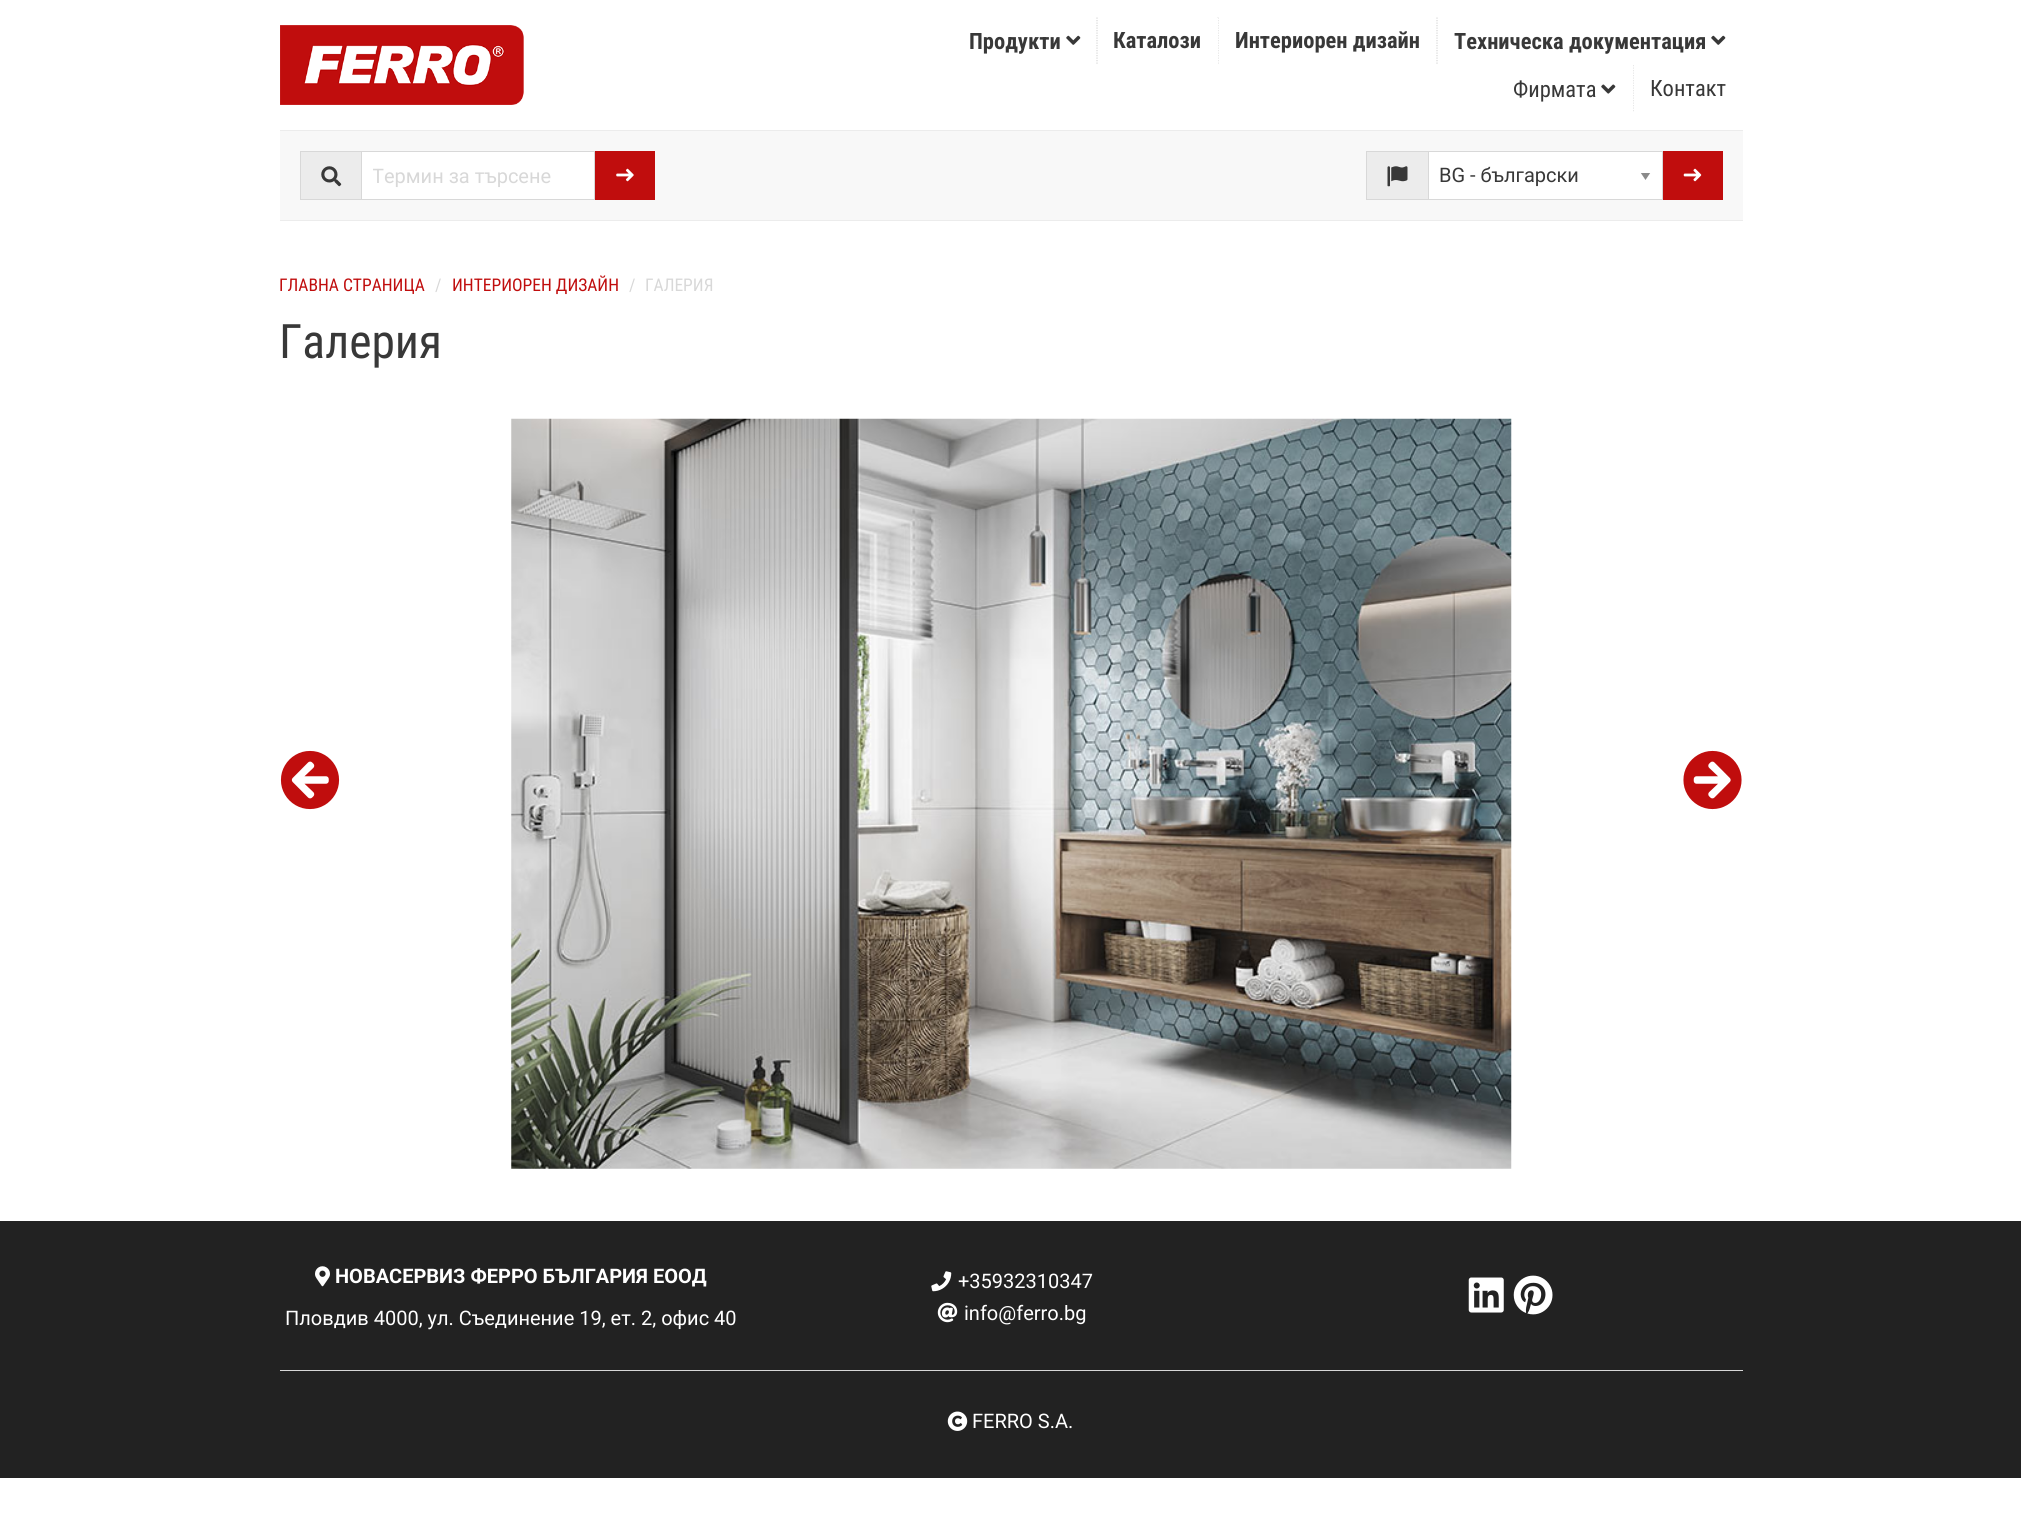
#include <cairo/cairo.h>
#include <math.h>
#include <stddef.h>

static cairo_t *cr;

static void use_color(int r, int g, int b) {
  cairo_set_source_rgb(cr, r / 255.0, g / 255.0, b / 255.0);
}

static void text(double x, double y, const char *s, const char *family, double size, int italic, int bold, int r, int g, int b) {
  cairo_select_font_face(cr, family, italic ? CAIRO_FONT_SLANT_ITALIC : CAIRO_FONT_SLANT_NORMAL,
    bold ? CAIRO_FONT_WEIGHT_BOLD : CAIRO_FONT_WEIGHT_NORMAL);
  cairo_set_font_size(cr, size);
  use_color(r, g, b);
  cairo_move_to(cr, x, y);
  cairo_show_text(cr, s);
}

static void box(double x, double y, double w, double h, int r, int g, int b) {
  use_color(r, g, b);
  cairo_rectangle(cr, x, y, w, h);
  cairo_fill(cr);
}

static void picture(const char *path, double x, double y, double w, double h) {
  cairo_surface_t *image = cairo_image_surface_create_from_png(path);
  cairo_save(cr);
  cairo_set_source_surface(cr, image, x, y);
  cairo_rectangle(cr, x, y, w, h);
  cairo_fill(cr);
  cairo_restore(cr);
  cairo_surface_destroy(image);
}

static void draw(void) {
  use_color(255, 255, 255);
  cairo_paint(cr);
  box(280, 130, 1463, 1, 236, 236, 236);
  picture("img_01.png", 280, 25, 244, 80);
  cairo_new_path(cr);
  cairo_move_to(cr, 1097, 17.5);
  cairo_line_to(cr, 1097, 65);
  use_color(216, 216, 216);
  cairo_set_line_width(cr, 1.2);
  cairo_set_dash(cr, (double[]){1.25, 1.25}, 2, 0);
  cairo_stroke(cr);
  picture("img_02.png", 1066, 35, 15, 10);
  cairo_new_path(cr);
  cairo_move_to(cr, 1218, 17.5);
  cairo_line_to(cr, 1218, 65);
  cairo_stroke(cr);
  box(1217, 18, 1, 46, 255, 255, 255);
  cairo_new_path(cr);
  cairo_move_to(cr, 1437, 17.5);
  cairo_line_to(cr, 1437, 65);
  use_color(216, 216, 216);
  cairo_stroke(cr);
  picture("img_02.png", 1711, 35, 15, 10);
  cairo_new_path(cr);
  cairo_move_to(cr, 1633, 65);
  cairo_line_to(cr, 1633, 112.5);
  cairo_stroke(cr);
  box(1632, 65, 1, 47, 255, 255, 255);
  picture("img_03.png", 1601, 84, 15, 10);
  box(280, 131, 1463, 89, 248, 248, 248);
  box(280, 220, 1463, 1, 236, 236, 236);
  box(301, 152, 60, 47, 236, 236, 236);
  box(300, 151, 61, 1, 216, 216, 216);
  box(300, 199, 61, 1, 216, 216, 216);
  box(300, 151, 1, 49, 216, 216, 216);
  picture("img_04.png", 321, 166, 21, 21);
  use_color(255, 255, 255);
  cairo_rectangle(cr, 361.5, 151.5, 233, 48);
  cairo_fill_preserve(cr);
  use_color(216, 216, 216);
  cairo_set_line_width(cr, 1);
  cairo_set_dash(cr, NULL, 0, 0);
  cairo_stroke(cr);
  box(595, 151, 60, 49, 192, 13, 13);
  picture("img_05.png", 616, 168, 18, 14);
  box(1367, 152, 61, 47, 236, 236, 236);
  box(1366, 151, 62, 1, 216, 216, 216);
  box(1366, 199, 62, 1, 216, 216, 216);
  box(1366, 151, 1, 49, 216, 216, 216);
  picture("img_06.png", 1387, 166, 21, 21);
  box(1429, 152, 233, 47, 255, 255, 255);
  cairo_save(cr);
  cairo_rectangle(cr, 1640, 173, 11, 7);
  cairo_clip(cr);
  use_color(138, 138, 138);
  cairo_new_path(cr);
  cairo_move_to(cr, 1640.5, 172.5);
  cairo_line_to(cr, 1650.5, 172.5);
  cairo_line_to(cr, 1645.5, 180);
  cairo_close_path(cr);
  cairo_fill(cr);
  cairo_restore(cr);
  cairo_rectangle(cr, 1428.5, 151.5, 234, 48);
  use_color(216, 216, 216);
  cairo_stroke(cr);
  box(1663, 151, 60, 49, 192, 13, 13);
  picture("img_07.png", 1683, 168, 19, 14);
  picture("img_08.png", 280, 750, 60, 60);
  picture("img_09.png", 511, 418, 1001, 751);
  picture("img_10.png", 1683, 750, 59, 60);
  box(0, 1221, 2021, 257, 34, 34, 34);
  picture("img_11.png", 315, 1266, 15, 21);
  picture("img_12.png", 931, 1271, 21, 21);
  picture("img_13.png", 937, 1302, 21, 21);
  picture("img_14.png", 1468, 1277, 36, 36);
  picture("img_15.png", 1513, 1275, 40, 40);
  box(280, 1370, 1463, 1, 216, 216, 216);
  picture("img_16.png", 947, 1411, 21, 20);
  text(969, 49, "Продукти", "Roboto Condensed", 22.5, 0, 1, 56, 56, 56);
  text(1113, 48, "Каталози", "Roboto Condensed", 22.5, 0, 1, 56, 56, 56);
  text(1235, 48, "Интериорен дизайн", "Roboto Condensed", 22.5, 0, 1, 56, 56, 56);
  text(1454, 49, "Техническа документация", "Roboto Condensed", 22.5, 0, 1, 56, 56, 56);
  text(1513, 97, "Фирмата", "Roboto Condensed", 22.5, 0, 0, 56, 56, 56);
  text(1650, 96, "Контакт", "Roboto Condensed", 22.5, 0, 0, 56, 56, 56);
  cairo_save(cr);
  cairo_rectangle(cr, 373, 164, 211, 24);
  cairo_clip(cr);
  text(372, 183, "Термин за търсене", "Roboto", 20, 0, 0, 216, 216, 216);
  cairo_restore(cr);
  text(1439, 182, "BG - български", "Roboto", 20, 0, 0, 56, 56, 56);
  text(279, 291, "ГЛАВНА СТРАНИЦА", "Roboto Condensed", 17.5, 0, 0, 192, 13, 13);
  text(435, 291, "/", "Roboto Condensed", 17.5, 0, 0, 216, 216, 216);
  text(452, 291, "ИНТЕРИОРЕН ДИЗАЙН", "Roboto Condensed", 17.5, 0, 0, 192, 13, 13);
  text(629, 291, "/", "Roboto Condensed", 17.5, 0, 0, 216, 216, 216);
  text(645, 291, "ГАЛЕРИЯ", "Roboto Condensed", 17.5, 0, 0, 216, 216, 216);
  text(279, 358, "Галерия", "Roboto Condensed", 47.5, 0, 0, 56, 56, 56);
  text(335, 1283, "НОВАСЕРВИЗ ФЕРРО БЪЛГАРИЯ ЕООД", "Roboto", 20, 0, 1, 255, 255, 255);
  text(285, 1325, "Пловдив 4000, ул. Съединение 19, ет. 2, офис 40", "Roboto", 20, 0, 0, 255, 255, 255);
  text(958, 1288, "+35932310347", "Roboto", 20, 0, 0, 255, 255, 255);
  text(964, 1320, "info@ferro.bg", "Roboto", 20, 0, 0, 255, 255, 255);
  text(972, 1428, "FERRO S.A.", "Roboto", 20, 0, 0, 255, 255, 255);
}

int main(void) {
  cairo_surface_t *surface = cairo_image_surface_create(CAIRO_FORMAT_RGB24, 2021, 1523);
  cr = cairo_create(surface);
  cairo_font_options_t *options = cairo_font_options_create();
  cairo_font_options_set_hint_metrics(options, CAIRO_HINT_METRICS_OFF);
  cairo_font_options_set_hint_style(options, CAIRO_HINT_STYLE_NONE);
  cairo_set_font_options(cr, options);
  cairo_set_miter_limit(cr, 4);
  draw();
  cairo_surface_write_to_png(surface, "out.png");
  cairo_font_options_destroy(options);
  cairo_destroy(cr);
  cairo_surface_destroy(surface);
  return 0;
}
